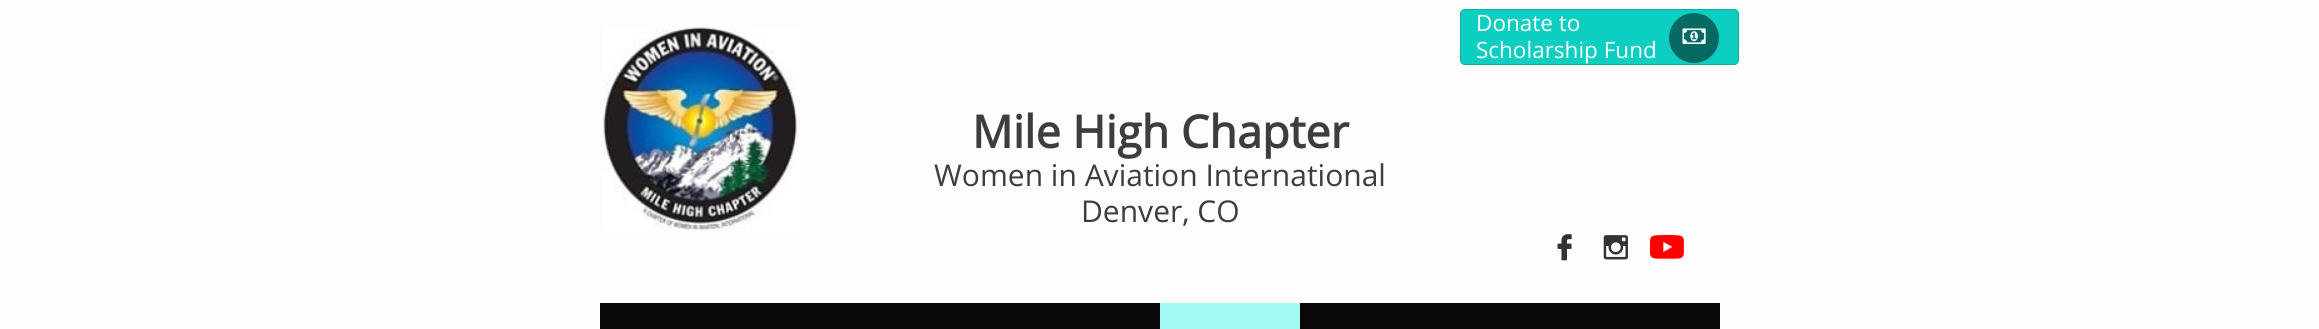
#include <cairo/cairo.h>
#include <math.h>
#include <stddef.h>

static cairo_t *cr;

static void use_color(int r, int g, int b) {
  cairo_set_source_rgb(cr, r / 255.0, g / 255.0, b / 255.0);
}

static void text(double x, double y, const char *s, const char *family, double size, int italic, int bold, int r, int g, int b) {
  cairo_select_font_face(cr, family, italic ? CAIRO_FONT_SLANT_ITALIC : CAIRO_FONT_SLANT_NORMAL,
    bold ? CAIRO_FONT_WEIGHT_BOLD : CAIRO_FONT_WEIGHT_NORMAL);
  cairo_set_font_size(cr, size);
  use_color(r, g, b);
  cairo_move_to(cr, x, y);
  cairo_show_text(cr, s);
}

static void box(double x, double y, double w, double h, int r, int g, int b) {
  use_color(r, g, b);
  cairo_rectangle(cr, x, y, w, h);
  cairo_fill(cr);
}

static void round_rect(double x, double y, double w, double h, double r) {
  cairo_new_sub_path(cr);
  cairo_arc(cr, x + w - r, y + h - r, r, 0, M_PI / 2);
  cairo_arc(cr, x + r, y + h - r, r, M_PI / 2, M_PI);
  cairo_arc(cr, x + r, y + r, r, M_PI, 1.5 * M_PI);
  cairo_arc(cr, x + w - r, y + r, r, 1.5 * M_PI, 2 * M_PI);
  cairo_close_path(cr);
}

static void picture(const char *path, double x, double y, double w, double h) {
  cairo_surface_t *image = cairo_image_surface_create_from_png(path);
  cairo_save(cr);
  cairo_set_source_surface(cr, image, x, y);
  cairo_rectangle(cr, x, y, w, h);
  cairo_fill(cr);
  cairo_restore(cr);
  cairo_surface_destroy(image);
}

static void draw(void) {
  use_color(253, 253, 253);
  cairo_paint(cr);
  picture("img_01.png", 603, 27, 197, 204);
  use_color(12, 207, 194);
  round_rect(1460.5, 9.5, 278, 55, 4.5);
  cairo_fill_preserve(cr);
  use_color(10, 174, 163);
  cairo_set_line_width(cr, 1);
  cairo_stroke(cr);
  use_color(6, 106, 99);
  cairo_arc(cr, 1694, 38, 25, 0, 2 * M_PI);
  cairo_fill(cr);
  picture("img_02.png", 1682, 28, 24, 16);
  picture("img_03.png", 1557, 234, 15, 27);
  picture("img_04.png", 1603, 235, 25, 25);
  picture("img_05.png", 1650, 234, 34, 26);
  box(600, 303, 560, 26, 8, 8, 8);
  box(1160, 303, 140, 26, 163, 250, 244);
  box(1300, 303, 420, 26, 8, 8, 8);
  text(972, 148, "Mile High Chapter", "Open Sans", 45, 0, 1, 61, 61, 61);
  text(934, 186, "Women in Aviation International", "Open Sans", 30, 0, 0, 61, 61, 61);
  text(1081, 222, "Denver, CO", "Open Sans", 30, 0, 0, 61, 61, 61);
  text(1476, 31, "Donate to", "Open Sans", 22.5, 0, 0, 255, 255, 255);
  text(1476, 58, "Scholarship Fund", "Open Sans", 22.5, 0, 0, 255, 255, 255);
}

int main(void) {
  cairo_surface_t *surface = cairo_image_surface_create(CAIRO_FORMAT_RGB24, 2319, 329);
  cr = cairo_create(surface);
  cairo_font_options_t *options = cairo_font_options_create();
  cairo_font_options_set_hint_metrics(options, CAIRO_HINT_METRICS_OFF);
  cairo_font_options_set_hint_style(options, CAIRO_HINT_STYLE_NONE);
  cairo_set_font_options(cr, options);
  cairo_set_miter_limit(cr, 4);
  draw();
  cairo_surface_write_to_png(surface, "out.png");
  cairo_font_options_destroy(options);
  cairo_destroy(cr);
  cairo_surface_destroy(surface);
  return 0;
}
